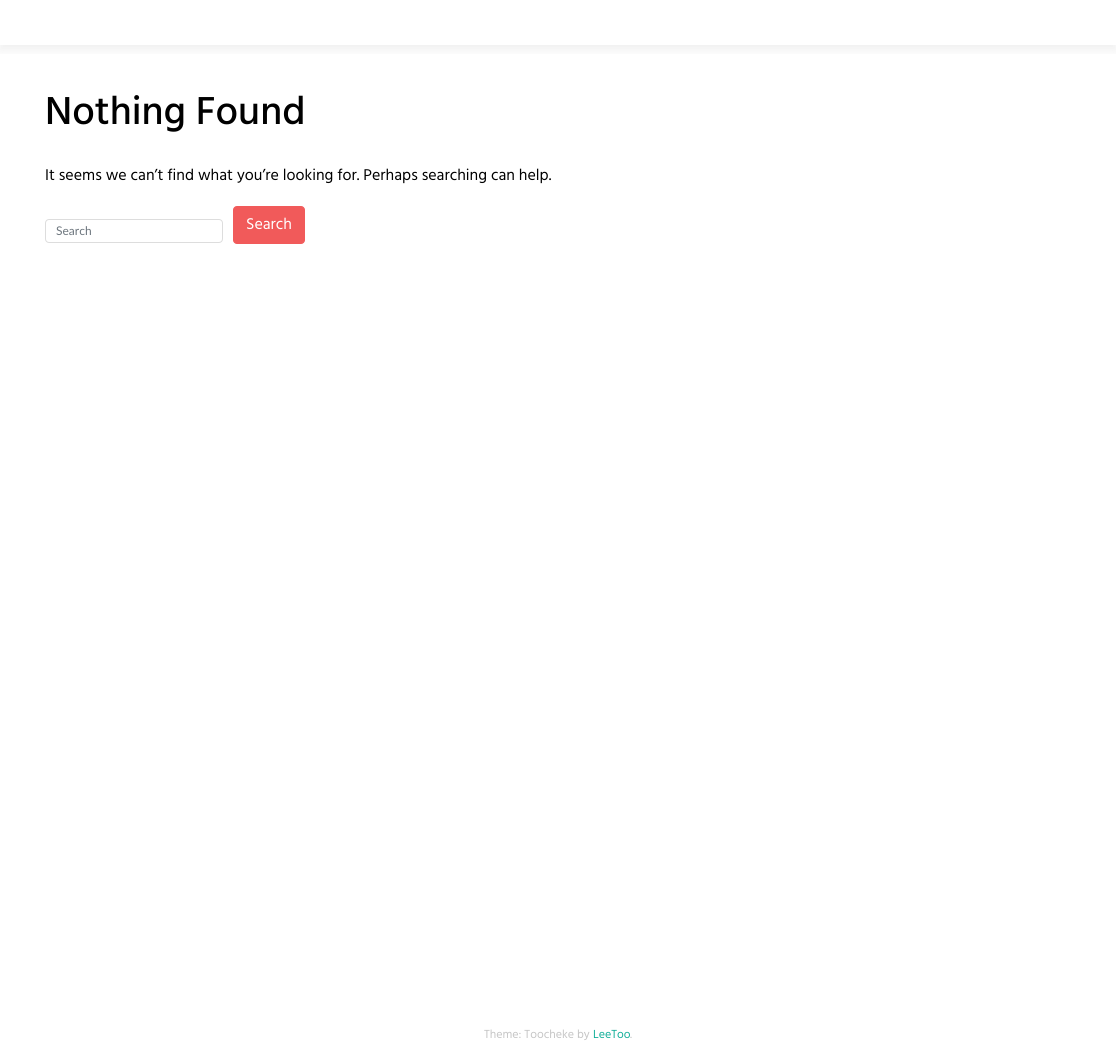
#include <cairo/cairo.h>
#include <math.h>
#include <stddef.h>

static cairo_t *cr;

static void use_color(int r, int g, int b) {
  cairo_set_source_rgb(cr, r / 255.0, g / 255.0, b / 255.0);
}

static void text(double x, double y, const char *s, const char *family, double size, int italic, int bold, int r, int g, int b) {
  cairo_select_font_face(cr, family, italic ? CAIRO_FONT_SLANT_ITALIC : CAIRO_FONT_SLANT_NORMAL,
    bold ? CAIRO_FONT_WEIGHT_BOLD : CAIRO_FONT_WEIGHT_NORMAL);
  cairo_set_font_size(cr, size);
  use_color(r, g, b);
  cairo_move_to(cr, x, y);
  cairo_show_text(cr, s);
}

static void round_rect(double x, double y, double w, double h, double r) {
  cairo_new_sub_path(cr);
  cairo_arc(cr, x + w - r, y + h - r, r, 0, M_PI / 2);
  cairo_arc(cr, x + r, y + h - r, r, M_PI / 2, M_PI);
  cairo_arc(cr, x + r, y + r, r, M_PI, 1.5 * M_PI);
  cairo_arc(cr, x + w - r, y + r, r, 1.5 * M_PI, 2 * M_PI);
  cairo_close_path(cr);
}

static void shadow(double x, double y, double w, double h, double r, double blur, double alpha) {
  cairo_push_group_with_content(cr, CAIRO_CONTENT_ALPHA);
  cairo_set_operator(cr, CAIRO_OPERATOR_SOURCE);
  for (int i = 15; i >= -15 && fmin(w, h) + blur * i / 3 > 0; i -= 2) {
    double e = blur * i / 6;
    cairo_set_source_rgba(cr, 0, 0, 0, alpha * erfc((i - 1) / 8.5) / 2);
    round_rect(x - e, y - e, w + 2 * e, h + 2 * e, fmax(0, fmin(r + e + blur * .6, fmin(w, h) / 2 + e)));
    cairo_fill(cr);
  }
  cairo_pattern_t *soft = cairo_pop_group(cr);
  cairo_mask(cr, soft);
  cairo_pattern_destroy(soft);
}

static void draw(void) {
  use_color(255, 255, 255);
  cairo_paint(cr);
  cairo_save(cr);
  cairo_rectangle(cr, 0, 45, 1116, 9);
  cairo_clip(cr);
  use_color(50, 50, 50);
  shadow(0, 5, 1116, 45, 0, 5.5, 0.08);
  cairo_restore(cr);
  use_color(241, 90, 90);
  round_rect(233.5, 206.5, 71, 37, 3.5);
  cairo_fill_preserve(cr);
  cairo_set_line_width(cr, 1);
  cairo_stroke(cr);
  round_rect(45.5, 219.5, 177, 23, 3.5);
  use_color(221, 221, 221);
  cairo_stroke(cr);
  text(45, 124, "Nothing Found", "Hind Medium", 40, 0, 0, 0, 0, 0);
  text(45, 180, "It seems we can’t find what you’re looking for. Perhaps searching can help.", "Hind", 16, 0, 0, 0, 0, 0);
  text(246, 229, "Search", "Hind", 16, 0, 0, 255, 255, 255);
  text(56, 235, "Search", "Lato", 12, 0, 0, 108, 117, 125);
  text(484, 1038, "Theme: Toocheke by", "Hind", 12, 0, 0, 197, 197, 197);
  text(593, 1038, "LeeToo", "Hind", 12, 0, 0, 16, 174, 152);
  text(630, 1038, ".", "Hind", 12, 0, 0, 197, 197, 197);
}

int main(void) {
  cairo_surface_t *surface = cairo_image_surface_create(CAIRO_FORMAT_RGB24, 1116, 1057);
  cr = cairo_create(surface);
  cairo_font_options_t *options = cairo_font_options_create();
  cairo_font_options_set_hint_metrics(options, CAIRO_HINT_METRICS_OFF);
  cairo_font_options_set_hint_style(options, CAIRO_HINT_STYLE_NONE);
  cairo_set_font_options(cr, options);
  cairo_set_miter_limit(cr, 4);
  draw();
  cairo_surface_write_to_png(surface, "out.png");
  cairo_font_options_destroy(options);
  cairo_destroy(cr);
  cairo_surface_destroy(surface);
  return 0;
}
